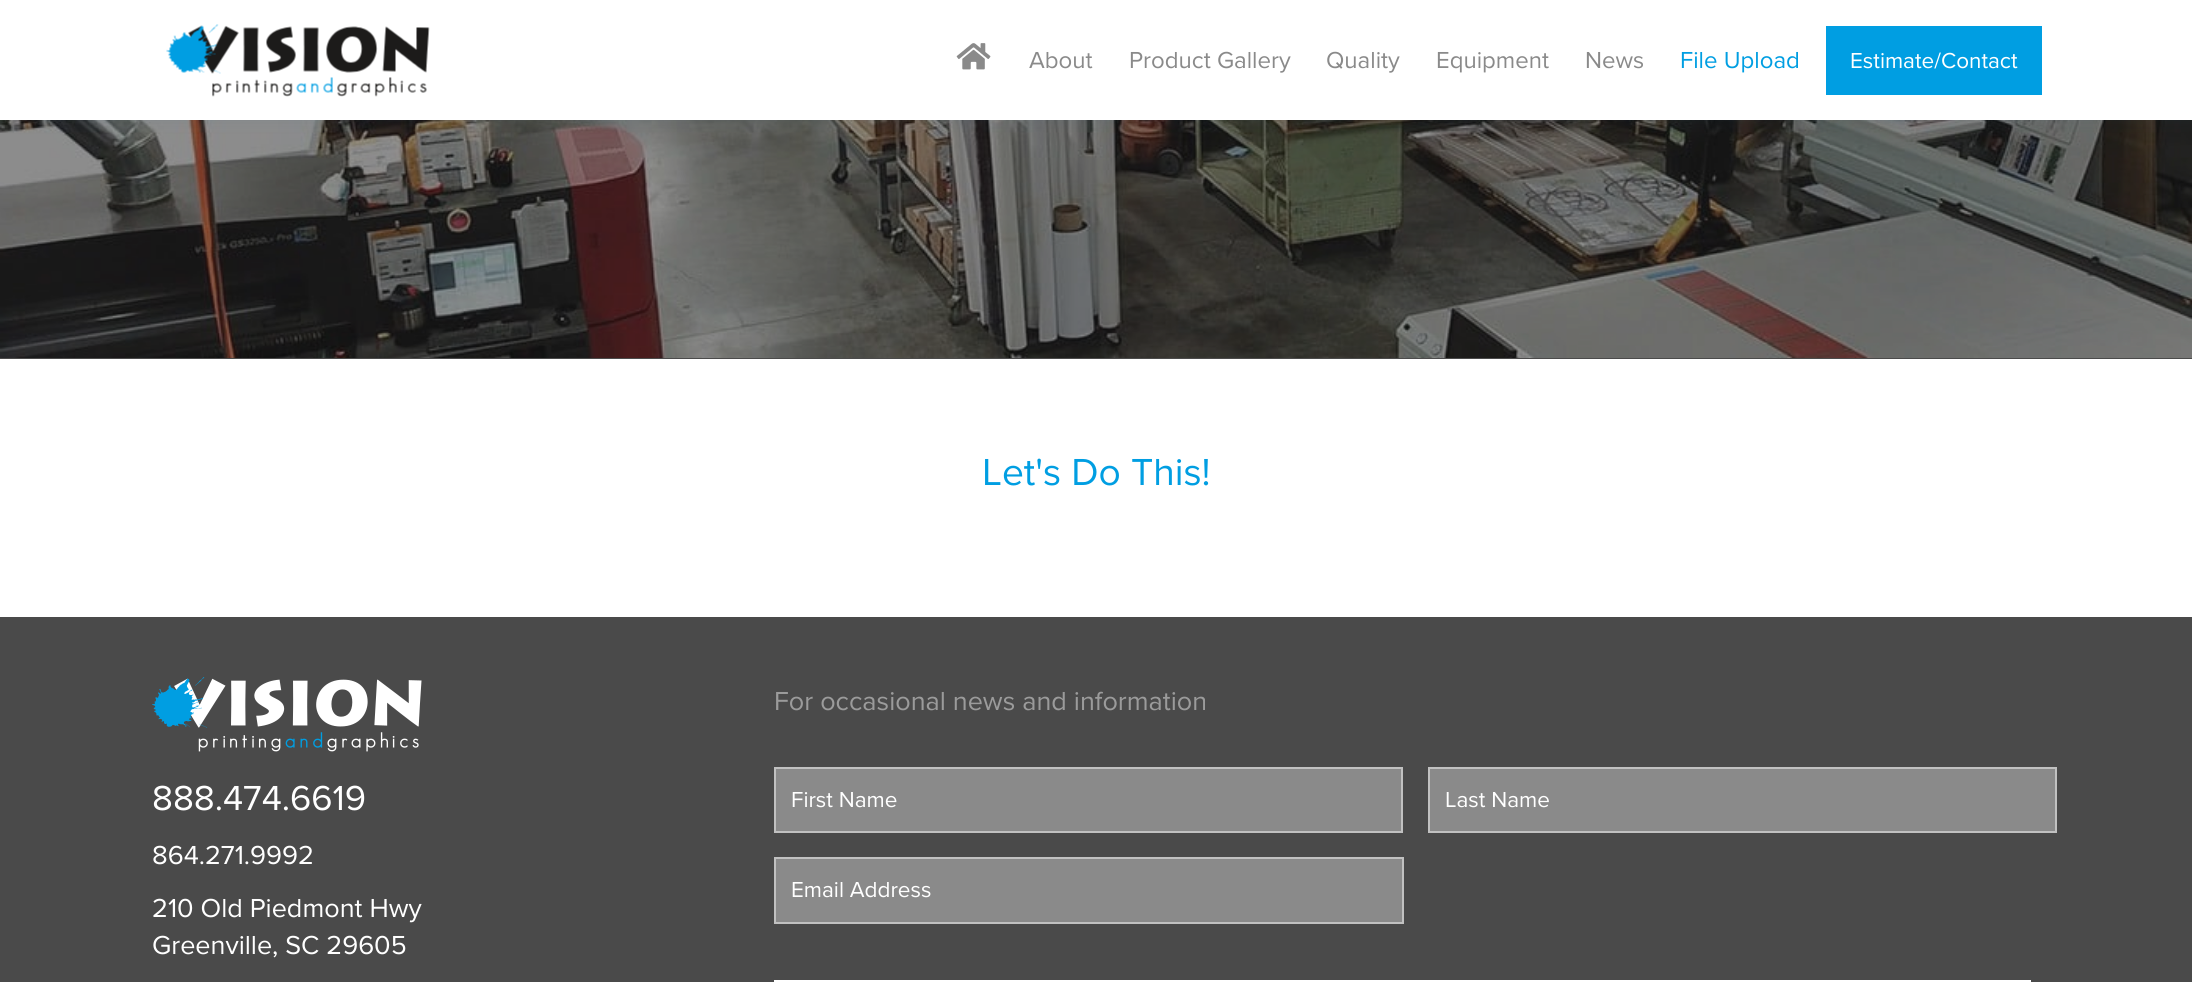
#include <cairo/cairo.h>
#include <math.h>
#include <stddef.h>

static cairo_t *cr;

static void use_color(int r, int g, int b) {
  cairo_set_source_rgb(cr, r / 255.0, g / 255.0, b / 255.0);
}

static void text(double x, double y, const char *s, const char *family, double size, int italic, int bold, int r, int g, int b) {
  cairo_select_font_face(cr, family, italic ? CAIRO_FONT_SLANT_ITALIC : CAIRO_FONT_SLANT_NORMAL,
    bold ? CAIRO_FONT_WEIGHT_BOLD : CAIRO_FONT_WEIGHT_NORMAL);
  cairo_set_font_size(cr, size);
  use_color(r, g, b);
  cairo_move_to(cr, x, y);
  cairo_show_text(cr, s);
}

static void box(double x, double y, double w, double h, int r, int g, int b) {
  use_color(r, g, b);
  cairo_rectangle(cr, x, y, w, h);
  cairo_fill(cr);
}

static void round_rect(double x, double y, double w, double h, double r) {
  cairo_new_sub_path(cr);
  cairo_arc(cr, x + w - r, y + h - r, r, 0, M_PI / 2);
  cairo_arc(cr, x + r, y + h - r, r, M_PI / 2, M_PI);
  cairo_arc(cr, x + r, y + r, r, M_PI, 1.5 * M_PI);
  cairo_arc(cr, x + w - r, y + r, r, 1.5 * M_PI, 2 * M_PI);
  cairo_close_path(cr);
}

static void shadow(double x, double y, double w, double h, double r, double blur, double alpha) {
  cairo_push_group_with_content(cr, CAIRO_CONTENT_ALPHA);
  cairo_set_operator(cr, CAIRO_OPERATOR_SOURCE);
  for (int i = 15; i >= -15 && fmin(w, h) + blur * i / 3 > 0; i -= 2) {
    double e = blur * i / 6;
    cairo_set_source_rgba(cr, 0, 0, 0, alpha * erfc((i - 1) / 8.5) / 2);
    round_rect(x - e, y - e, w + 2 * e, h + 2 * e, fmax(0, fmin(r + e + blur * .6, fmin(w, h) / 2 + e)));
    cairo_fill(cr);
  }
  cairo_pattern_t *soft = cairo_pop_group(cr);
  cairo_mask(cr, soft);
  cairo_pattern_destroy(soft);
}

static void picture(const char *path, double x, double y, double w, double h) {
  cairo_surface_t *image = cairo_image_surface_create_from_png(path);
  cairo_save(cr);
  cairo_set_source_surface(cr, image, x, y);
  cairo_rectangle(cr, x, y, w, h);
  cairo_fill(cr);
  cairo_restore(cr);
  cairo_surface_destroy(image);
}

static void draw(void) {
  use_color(255, 255, 255);
  cairo_paint(cr);
  picture("img_03.png", 0, 120, 2192, 238);
  use_color(22, 92, 125);
  shadow(0, 0, 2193, 120, 0, 7.5, 0.1);
  box(0, 0, 2192, 120, 255, 255, 255);
  picture("img_01.png", 166, 24, 264, 73);
  picture("img_02.png", 956, 43, 35, 27);
  box(1826, 26, 216, 69, 0, 158, 226);
  box(0, 358, 2192, 1, 75, 75, 75);
  box(0, 617, 2192, 365, 74, 74, 74);
  picture("img_04.png", 152, 677, 270, 75);
  use_color(138, 138, 138);
  cairo_rectangle(cr, 775, 768, 627, 64);
  cairo_fill_preserve(cr);
  use_color(193, 193, 193);
  cairo_stroke(cr);
  use_color(138, 138, 138);
  cairo_rectangle(cr, 1429, 768, 627, 64);
  cairo_fill_preserve(cr);
  use_color(193, 193, 193);
  cairo_stroke(cr);
  use_color(138, 138, 138);
  cairo_rectangle(cr, 775, 858, 628, 65);
  cairo_fill_preserve(cr);
  use_color(193, 193, 193);
  cairo_stroke(cr);
  box(774, 980, 1257, 2, 255, 255, 255);
  text(1029, 68, "About", "Proxima Nova", 24, 0, 0, 138, 138, 138);
  text(1129, 68, "Product Gallery", "Proxima Nova", 24, 0, 0, 138, 138, 138);
  text(1326, 68, "Quality", "Proxima Nova", 24, 0, 0, 138, 138, 138);
  text(1436, 68, "Equipment", "Proxima Nova", 24, 0, 0, 138, 138, 138);
  text(1585, 68, "News", "Proxima Nova", 24, 0, 0, 138, 138, 138);
  text(1680, 68, "File Upload", "Proxima Nova", 24, 0, 0, 0, 158, 226);
  text(1850, 68, "Estimate/Contact", "Proxima Nova", 22.5, 0, 0, 255, 255, 255);
  text(982, 485, "Let's Do This!", "Proxima Nova", 39, 0, 0, 0, 158, 226);
  text(152, 810, "888.474.6619", "Proxima Nova", 36, 0, 0, 255, 255, 255);
  text(152, 864, "864.271.9992", "Proxima Nova", 27, 0, 0, 255, 255, 255);
  text(152, 917, "210 Old Piedmont Hwy", "Proxima Nova", 27, 0, 0, 255, 255, 255);
  text(152, 954, "Greenville, SC 29605", "Proxima Nova", 27, 0, 0, 255, 255, 255);
  text(774, 710, "For occasional news and information", "Proxima Nova", 27, 0, 0, 155, 155, 155);
  text(791, 807, "First Name", "Proxima Nova", 22.5, 0, 0, 255, 255, 255);
  text(1445, 807, "Last Name", "Proxima Nova", 22.5, 0, 0, 255, 255, 255);
  text(791, 897, "Email Address", "Proxima Nova", 22.5, 0, 0, 255, 255, 255);
}

int main(void) {
  cairo_surface_t *surface = cairo_image_surface_create(CAIRO_FORMAT_RGB24, 2192, 982);
  cr = cairo_create(surface);
  cairo_font_options_t *options = cairo_font_options_create();
  cairo_font_options_set_hint_metrics(options, CAIRO_HINT_METRICS_OFF);
  cairo_font_options_set_hint_style(options, CAIRO_HINT_STYLE_NONE);
  cairo_set_font_options(cr, options);
  cairo_set_miter_limit(cr, 4);
  draw();
  cairo_surface_write_to_png(surface, "out.png");
  cairo_font_options_destroy(options);
  cairo_destroy(cr);
  cairo_surface_destroy(surface);
  return 0;
}
